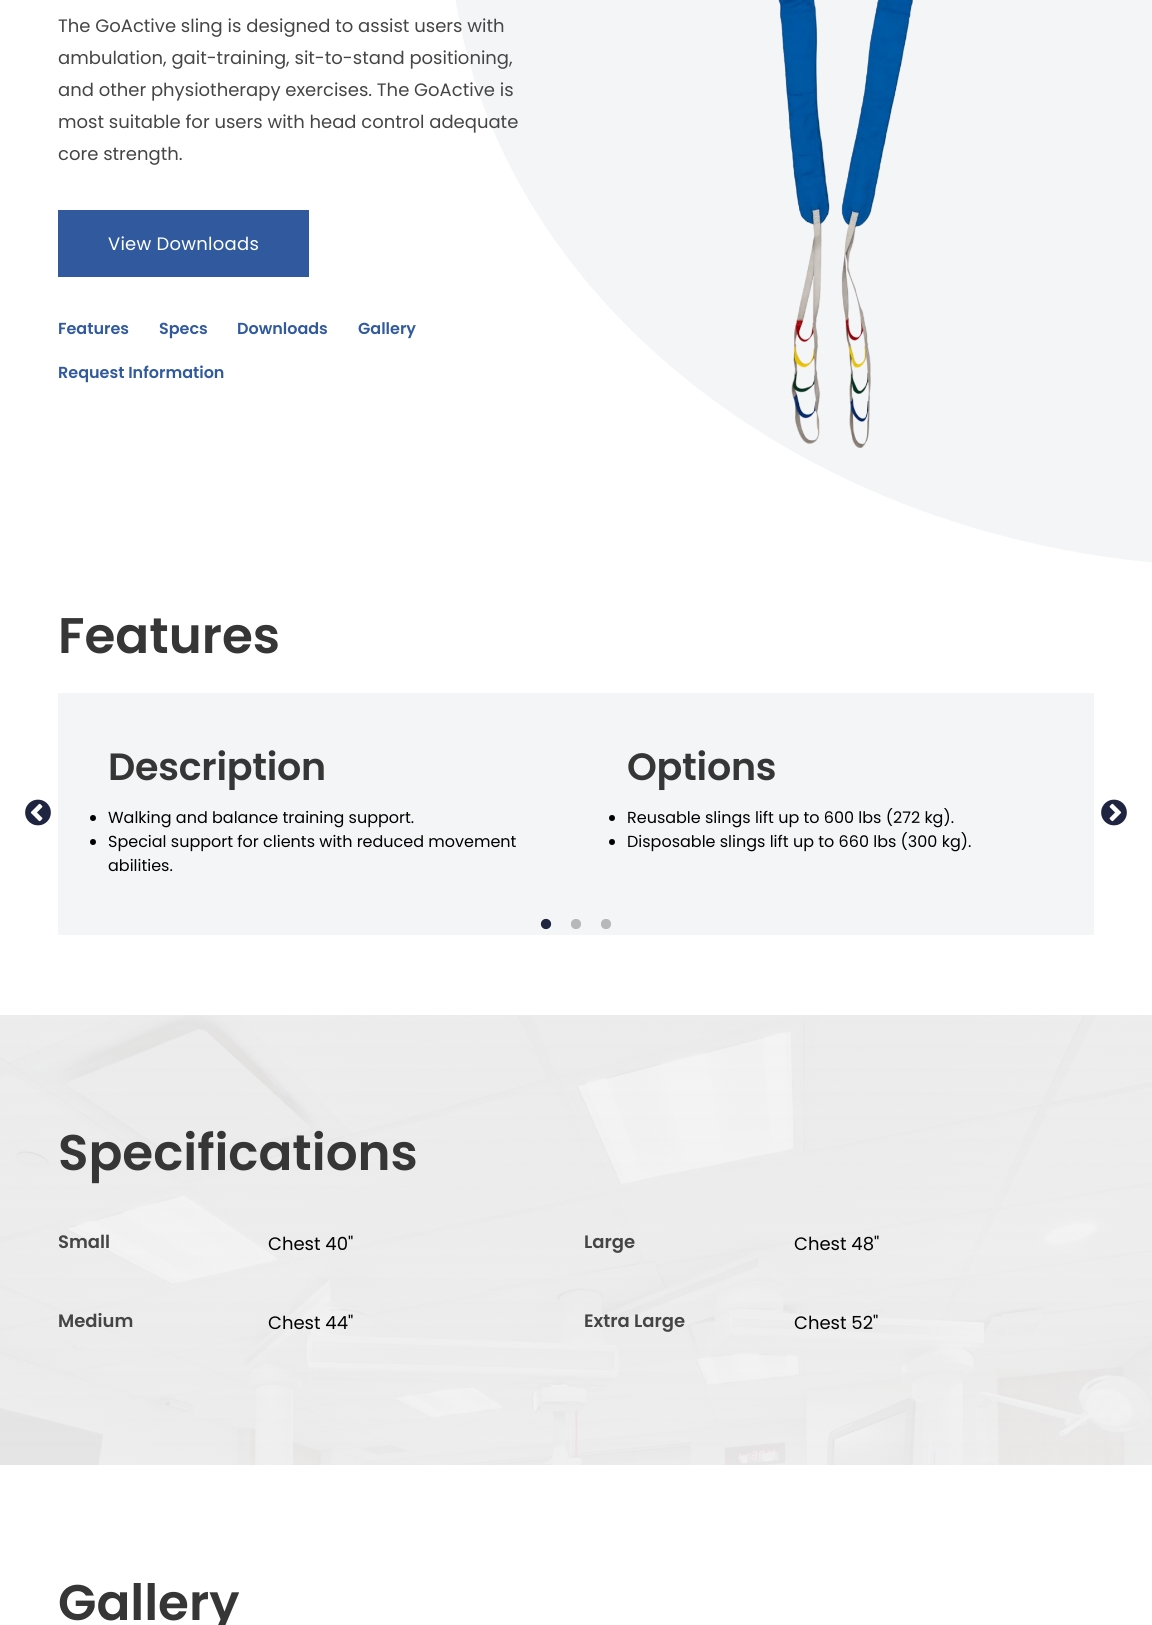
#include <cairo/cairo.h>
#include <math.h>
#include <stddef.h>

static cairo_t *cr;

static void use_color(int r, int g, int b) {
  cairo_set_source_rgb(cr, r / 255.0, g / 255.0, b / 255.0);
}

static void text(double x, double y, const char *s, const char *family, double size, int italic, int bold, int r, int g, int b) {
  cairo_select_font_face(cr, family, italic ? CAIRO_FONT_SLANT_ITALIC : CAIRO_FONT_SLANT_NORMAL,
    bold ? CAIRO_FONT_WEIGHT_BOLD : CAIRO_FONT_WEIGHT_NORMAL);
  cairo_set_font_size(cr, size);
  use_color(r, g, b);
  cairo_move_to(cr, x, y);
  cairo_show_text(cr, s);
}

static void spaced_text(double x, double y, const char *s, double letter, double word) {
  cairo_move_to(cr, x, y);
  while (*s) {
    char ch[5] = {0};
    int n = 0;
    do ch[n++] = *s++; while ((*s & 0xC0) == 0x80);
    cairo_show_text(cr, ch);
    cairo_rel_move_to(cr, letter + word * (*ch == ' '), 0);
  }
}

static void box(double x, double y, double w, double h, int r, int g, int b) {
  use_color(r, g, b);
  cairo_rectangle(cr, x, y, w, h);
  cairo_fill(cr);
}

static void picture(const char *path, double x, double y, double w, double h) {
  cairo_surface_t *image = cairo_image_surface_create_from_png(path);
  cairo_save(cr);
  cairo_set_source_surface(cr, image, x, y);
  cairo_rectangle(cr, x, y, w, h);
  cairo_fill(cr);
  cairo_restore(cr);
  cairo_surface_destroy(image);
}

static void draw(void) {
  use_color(255, 255, 255);
  cairo_paint(cr);
  box(58, 210, 251, 67, 49, 90, 158);
  use_color(244, 245, 247);
  cairo_new_path(cr);
  cairo_move_to(cr, 1246.5, -735);
  cairo_curve_to(cr, 1687, -735, 2044, -443.5, 2044, -84);
  cairo_curve_to(cr, 2044, 275.5, 1687, 567, 1246.5, 567);
  cairo_curve_to(cr, 806, 567, 449, 275.5, 449, -84);
  cairo_curve_to(cr, 449, -443.5, 806, -735, 1246.5, -735);
  cairo_close_path(cr);
  cairo_fill(cr);
  picture("img_01.png", 778, 0, 135, 448);
  box(58, 693, 1036, 242, 244, 245, 247);
  picture("img_02.png", 25, 799, 26, 27);
  use_color(0, 0, 0);
  cairo_arc(cr, 93, 818, 3, 0, 2 * M_PI);
  cairo_fill(cr);
  cairo_arc(cr, 93, 842, 3, 0, 2 * M_PI);
  cairo_fill(cr);
  cairo_arc(cr, 612, 818, 3, 0, 2 * M_PI);
  cairo_fill(cr);
  cairo_arc(cr, 612, 842, 3, 0, 2 * M_PI);
  cairo_fill(cr);
  picture("img_03.png", 1101, 799, 26, 27);
  picture("img_04.png", 540, 918, 12, 12);
  picture("img_05.png", 571, 919, 10, 10);
  picture("img_05.png", 601, 919, 10, 10);
  picture("img_06.png", 0, 1015, 1152, 450);
  text(58, 32, "The GoActive sling is designed to assist users with", "Poppins", 18, 0, 0, 69, 69, 69);
  text(58, 64, "ambulation, gait-training, sit-to-stand positioning,", "Poppins", 18, 0, 0, 69, 69, 69);
  text(58, 96, "and other physiotherapy exercises. The GoActive is", "Poppins", 18, 0, 0, 69, 69, 69);
  text(58, 128, "most suitable for users with head control adequate", "Poppins", 18, 0, 0, 69, 69, 69);
  text(58, 160, "core strength.", "Poppins", 18, 0, 0, 69, 69, 69);
  use_color(255, 255, 255);
  spaced_text(108, 250, "View Downloads", 0.25, 0);
  text(58, 334, "Features", "Poppins SemiBold", 16, 0, 0, 49, 90, 158);
  text(159, 334, "Specs", "Poppins SemiBold", 16, 0, 0, 49, 90, 158);
  text(237, 334, "Downloads", "Poppins SemiBold", 16, 0, 0, 49, 90, 158);
  text(358, 334, "Gallery", "Poppins SemiBold", 16, 0, 0, 49, 90, 158);
  text(58, 378, "Request Information", "Poppins SemiBold", 16, 0, 0, 49, 90, 158);
  text(58, 653, "Features", "Poppins SemiBold", 50, 0, 0, 54, 54, 54);
  cairo_set_font_size(cr, 38);
  spaced_text(108, 780, "Description", -0.25, 0);
  text(108, 823, "Walking and balance training support.", "Poppins", 16, 0, 0, 0, 0, 0);
  text(108, 847, "Special support for clients with reduced movement", "Poppins", 16, 0, 0, 0, 0, 0);
  text(108, 871, "abilities.", "Poppins", 16, 0, 0, 0, 0, 0);
  cairo_select_font_face(cr, "Poppins SemiBold", CAIRO_FONT_SLANT_NORMAL, CAIRO_FONT_WEIGHT_NORMAL);
  cairo_set_font_size(cr, 38);
  use_color(54, 54, 54);
  spaced_text(627, 780, "Options", -0.25, 0);
  text(627, 823, "Reusable slings lift up to 600 lbs (272 kg).", "Poppins", 16, 0, 0, 0, 0, 0);
  text(627, 847, "Disposable slings lift up to 660 lbs (300 kg).", "Poppins", 16, 0, 0, 0, 0, 0);
  text(58, 1170, "Specifications", "Poppins SemiBold", 50, 0, 0, 54, 54, 54);
  text(58, 1248, "Small", "Poppins SemiBold", 18, 0, 0, 69, 69, 69);
  text(268, 1250, "Chest 40\"", "Poppins", 18, 0, 0, 0, 0, 0);
  text(584, 1248, "Large", "Poppins SemiBold", 18, 0, 0, 69, 69, 69);
  text(794, 1250, "Chest 48\"", "Poppins", 18, 0, 0, 0, 0, 0);
  text(58, 1327, "Medium", "Poppins SemiBold", 18, 0, 0, 69, 69, 69);
  text(268, 1329, "Chest 44\"", "Poppins", 18, 0, 0, 0, 0, 0);
  text(584, 1327, "Extra Large", "Poppins SemiBold", 18, 0, 0, 69, 69, 69);
  text(794, 1329, "Chest 52\"", "Poppins", 18, 0, 0, 0, 0, 0);
  text(58, 1620, "Gallery", "Poppins SemiBold", 50, 0, 0, 54, 54, 54);
}

int main(void) {
  cairo_surface_t *surface = cairo_image_surface_create(CAIRO_FORMAT_RGB24, 1152, 1625);
  cr = cairo_create(surface);
  cairo_font_options_t *options = cairo_font_options_create();
  cairo_font_options_set_hint_metrics(options, CAIRO_HINT_METRICS_OFF);
  cairo_font_options_set_hint_style(options, CAIRO_HINT_STYLE_NONE);
  cairo_set_font_options(cr, options);
  cairo_set_miter_limit(cr, 4);
  draw();
  cairo_surface_write_to_png(surface, "out.png");
  cairo_font_options_destroy(options);
  cairo_destroy(cr);
  cairo_surface_destroy(surface);
  return 0;
}
